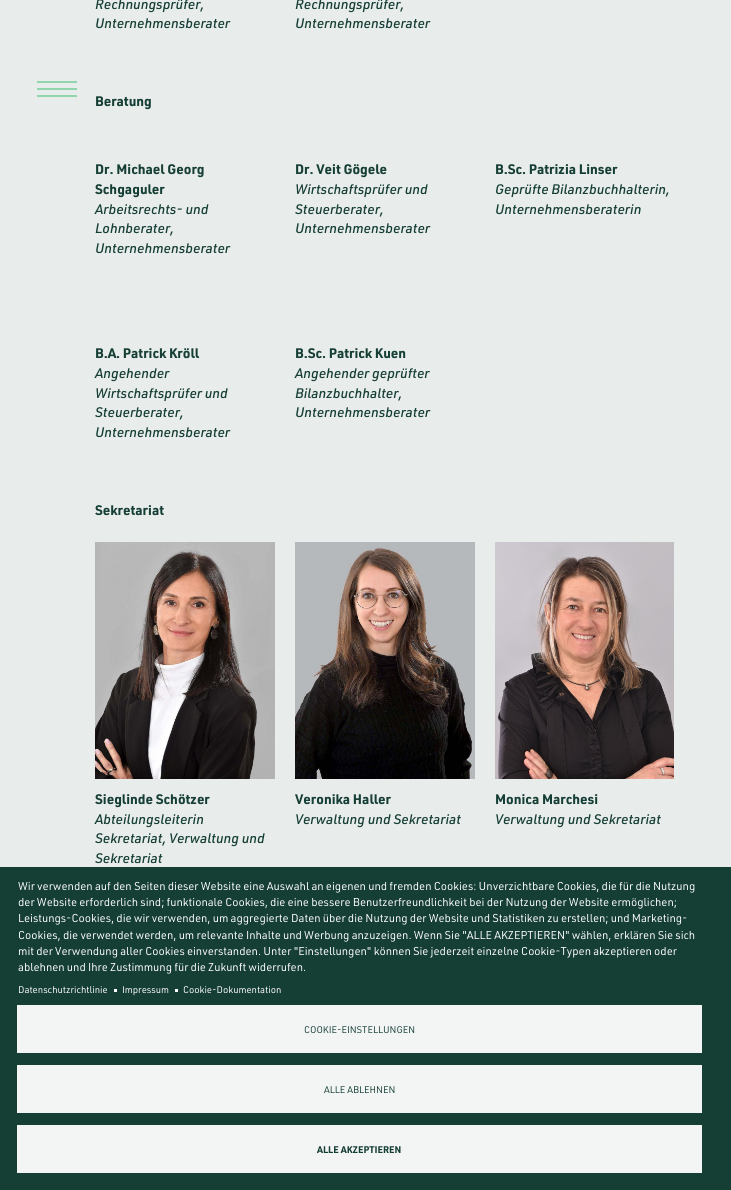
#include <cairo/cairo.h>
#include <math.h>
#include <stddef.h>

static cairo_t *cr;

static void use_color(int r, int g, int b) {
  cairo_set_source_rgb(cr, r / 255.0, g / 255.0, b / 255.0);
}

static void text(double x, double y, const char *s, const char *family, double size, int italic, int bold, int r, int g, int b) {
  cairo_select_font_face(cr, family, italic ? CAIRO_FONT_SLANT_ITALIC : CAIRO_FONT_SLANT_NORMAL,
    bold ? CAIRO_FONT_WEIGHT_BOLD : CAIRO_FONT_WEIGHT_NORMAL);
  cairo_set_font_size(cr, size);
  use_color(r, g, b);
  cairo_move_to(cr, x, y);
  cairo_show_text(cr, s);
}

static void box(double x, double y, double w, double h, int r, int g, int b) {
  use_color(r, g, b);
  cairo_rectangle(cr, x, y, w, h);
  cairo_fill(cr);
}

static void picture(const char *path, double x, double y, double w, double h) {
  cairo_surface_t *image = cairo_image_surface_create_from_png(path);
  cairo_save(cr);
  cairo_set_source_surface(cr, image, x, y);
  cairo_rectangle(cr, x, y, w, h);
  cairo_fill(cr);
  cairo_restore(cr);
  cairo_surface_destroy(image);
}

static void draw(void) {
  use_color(232, 236, 235);
  cairo_paint(cr);
  box(37, 81, 40, 2, 144, 213, 172);
  box(37, 88, 40, 2, 144, 213, 172);
  box(37, 95, 40, 2, 144, 213, 172);
  picture("img_01.png", 95, 542, 180, 237);
  picture("img_02.png", 295, 542, 180, 237);
  picture("img_03.png", 495, 542, 179, 237);
  box(0, 867, 731, 323, 21, 62, 53);
  box(114, 989, 3, 3, 255, 255, 255);
  box(175, 989, 3, 3, 255, 255, 255);
  box(17, 1005, 685, 48, 243, 245, 245);
  box(17, 1065, 685, 48, 243, 245, 245);
  box(17, 1125, 685, 48, 243, 245, 245);
  text(95, 9, "Rechnungsprüfer,", "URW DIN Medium", 13.6, 1, 0, 21, 62, 53);
  text(95, 28, "Unternehmensberater", "URW DIN Medium", 13.6, 1, 0, 21, 62, 53);
  text(295, 9, "Rechnungsprüfer,", "URW DIN Medium", 13.6, 1, 0, 21, 62, 53);
  text(295, 28, "Unternehmensberater", "URW DIN Medium", 13.6, 1, 0, 21, 62, 53);
  text(95, 106, "Beratung", "URW DIN", 13.6, 0, 1, 21, 62, 53);
  text(95, 174, "Dr. Michael Georg", "URW DIN", 13.6, 0, 1, 21, 62, 53);
  text(95, 194, "Schgaguler", "URW DIN", 13.6, 0, 1, 21, 62, 53);
  text(95, 214, "Arbeitsrechts- und", "URW DIN Medium", 13.6, 1, 0, 21, 62, 53);
  text(95, 233, "Lohnberater,", "URW DIN Medium", 13.6, 1, 0, 21, 62, 53);
  text(95, 253, "Unternehmensberater", "URW DIN Medium", 13.6, 1, 0, 21, 62, 53);
  text(295, 174, "Dr. Veit Gögele", "URW DIN", 13.6, 0, 1, 21, 62, 53);
  text(295, 194, "Wirtschaftsprüfer und", "URW DIN Medium", 13.6, 1, 0, 21, 62, 53);
  text(295, 214, "Steuerberater,", "URW DIN Medium", 13.6, 1, 0, 21, 62, 53);
  text(295, 233, "Unternehmensberater", "URW DIN Medium", 13.6, 1, 0, 21, 62, 53);
  text(495, 174, "B.Sc. Patrizia Linser", "URW DIN", 13.6, 0, 1, 21, 62, 53);
  text(495, 194, "Geprüfte Bilanzbuchhalterin,", "URW DIN Medium", 13.6, 1, 0, 21, 62, 53);
  text(495, 214, "Unternehmensberaterin", "URW DIN Medium", 13.6, 1, 0, 21, 62, 53);
  text(95, 358, "B.A. Patrick Kröll", "URW DIN", 13.6, 0, 1, 21, 62, 53);
  text(95, 378, "Angehender", "URW DIN Medium", 13.6, 1, 0, 21, 62, 53);
  text(95, 398, "Wirtschaftsprüfer und", "URW DIN Medium", 13.6, 1, 0, 21, 62, 53);
  text(95, 417, "Steuerberater,", "URW DIN Medium", 13.6, 1, 0, 21, 62, 53);
  text(95, 437, "Unternehmensberater", "URW DIN Medium", 13.6, 1, 0, 21, 62, 53);
  text(295, 358, "B.Sc. Patrick Kuen", "URW DIN", 13.6, 0, 1, 21, 62, 53);
  text(295, 378, "Angehender geprüfter", "URW DIN Medium", 13.6, 1, 0, 21, 62, 53);
  text(295, 398, "Bilanzbuchhalter,", "URW DIN Medium", 13.6, 1, 0, 21, 62, 53);
  text(295, 417, "Unternehmensberater", "URW DIN Medium", 13.6, 1, 0, 21, 62, 53);
  text(95, 515, "Sekretariat", "URW DIN", 13.6, 0, 1, 21, 62, 53);
  text(95, 804, "Sieglinde Schötzer", "URW DIN", 13.6, 0, 1, 21, 62, 53);
  text(95, 824, "Abteilungsleiterin", "URW DIN Medium", 13.6, 1, 0, 21, 62, 53);
  text(95, 843, "Sekretariat, Verwaltung und", "URW DIN Medium", 13.6, 1, 0, 21, 62, 53);
  text(95, 863, "Sekretariat", "URW DIN Medium", 13.6, 1, 0, 21, 62, 53);
  text(295, 804, "Veronika Haller", "URW DIN", 13.6, 0, 1, 21, 62, 53);
  text(295, 824, "Verwaltung und Sekretariat", "URW DIN Medium", 13.6, 1, 0, 21, 62, 53);
  text(495, 804, "Monica Marchesi", "URW DIN", 13.6, 0, 1, 21, 62, 53);
  text(495, 824, "Verwaltung und Sekretariat", "URW DIN Medium", 13.6, 1, 0, 21, 62, 53);
  text(18, 890, "Wir verwenden auf den Seiten dieser Website eine Auswahl an eigenen und fremden Cookies: Unverzichtbare Cookies, die für die Nutzung", "URW DIN", 11.2, 0, 0, 255, 255, 255);
  text(18, 906, "der Website erforderlich sind; funktionale Cookies, die eine bessere Benutzerfreundlichkeit bei der Nutzung der Website ermöglichen;", "URW DIN", 11.2, 0, 0, 255, 255, 255);
  text(18, 922, "Leistungs-Cookies, die wir verwenden, um aggregierte Daten über die Nutzung der Website und Statistiken zu erstellen; und Marketing-", "URW DIN", 11.2, 0, 0, 255, 255, 255);
  text(18, 939, "Cookies, die verwendet werden, um relevante Inhalte und Werbung anzuzeigen. Wenn Sie \"ALLE AKZEPTIEREN\" wählen, erklären Sie sich", "URW DIN", 11.2, 0, 0, 255, 255, 255);
  text(18, 955, "mit der Verwendung aller Cookies einverstanden. Unter \"Einstellungen\" können Sie jederzeit einzelne Cookie-Typen akzeptieren oder", "URW DIN", 11.2, 0, 0, 255, 255, 255);
  text(18, 971, "ablehnen und Ihre Zustimmung für die Zukunft widerrufen.", "URW DIN", 11.2, 0, 0, 255, 255, 255);
  text(18, 993, "Datenschutzrichtlinie", "URW DIN", 9.5, 0, 0, 255, 255, 255);
  text(122, 993, "Impressum", "URW DIN", 9.5, 0, 0, 255, 255, 255);
  text(183, 993, "Cookie-Dokumentation", "URW DIN", 9.5, 0, 0, 255, 255, 255);
  text(304, 1033, "COOKIE-EINSTELLUNGEN", "URW DIN", 9.5, 0, 0, 21, 62, 53);
  text(324, 1093, "ALLE ABLEHNEN", "URW DIN", 9.5, 0, 0, 21, 62, 53);
  text(317, 1153, "ALLE AKZEPTIEREN", "URW DIN", 9.5, 0, 1, 21, 62, 53);
}

int main(void) {
  cairo_surface_t *surface = cairo_image_surface_create(CAIRO_FORMAT_RGB24, 731, 1190);
  cr = cairo_create(surface);
  cairo_font_options_t *options = cairo_font_options_create();
  cairo_font_options_set_hint_metrics(options, CAIRO_HINT_METRICS_OFF);
  cairo_font_options_set_hint_style(options, CAIRO_HINT_STYLE_NONE);
  cairo_set_font_options(cr, options);
  cairo_set_miter_limit(cr, 4);
  draw();
  cairo_surface_write_to_png(surface, "out.png");
  cairo_font_options_destroy(options);
  cairo_destroy(cr);
  cairo_surface_destroy(surface);
  return 0;
}
